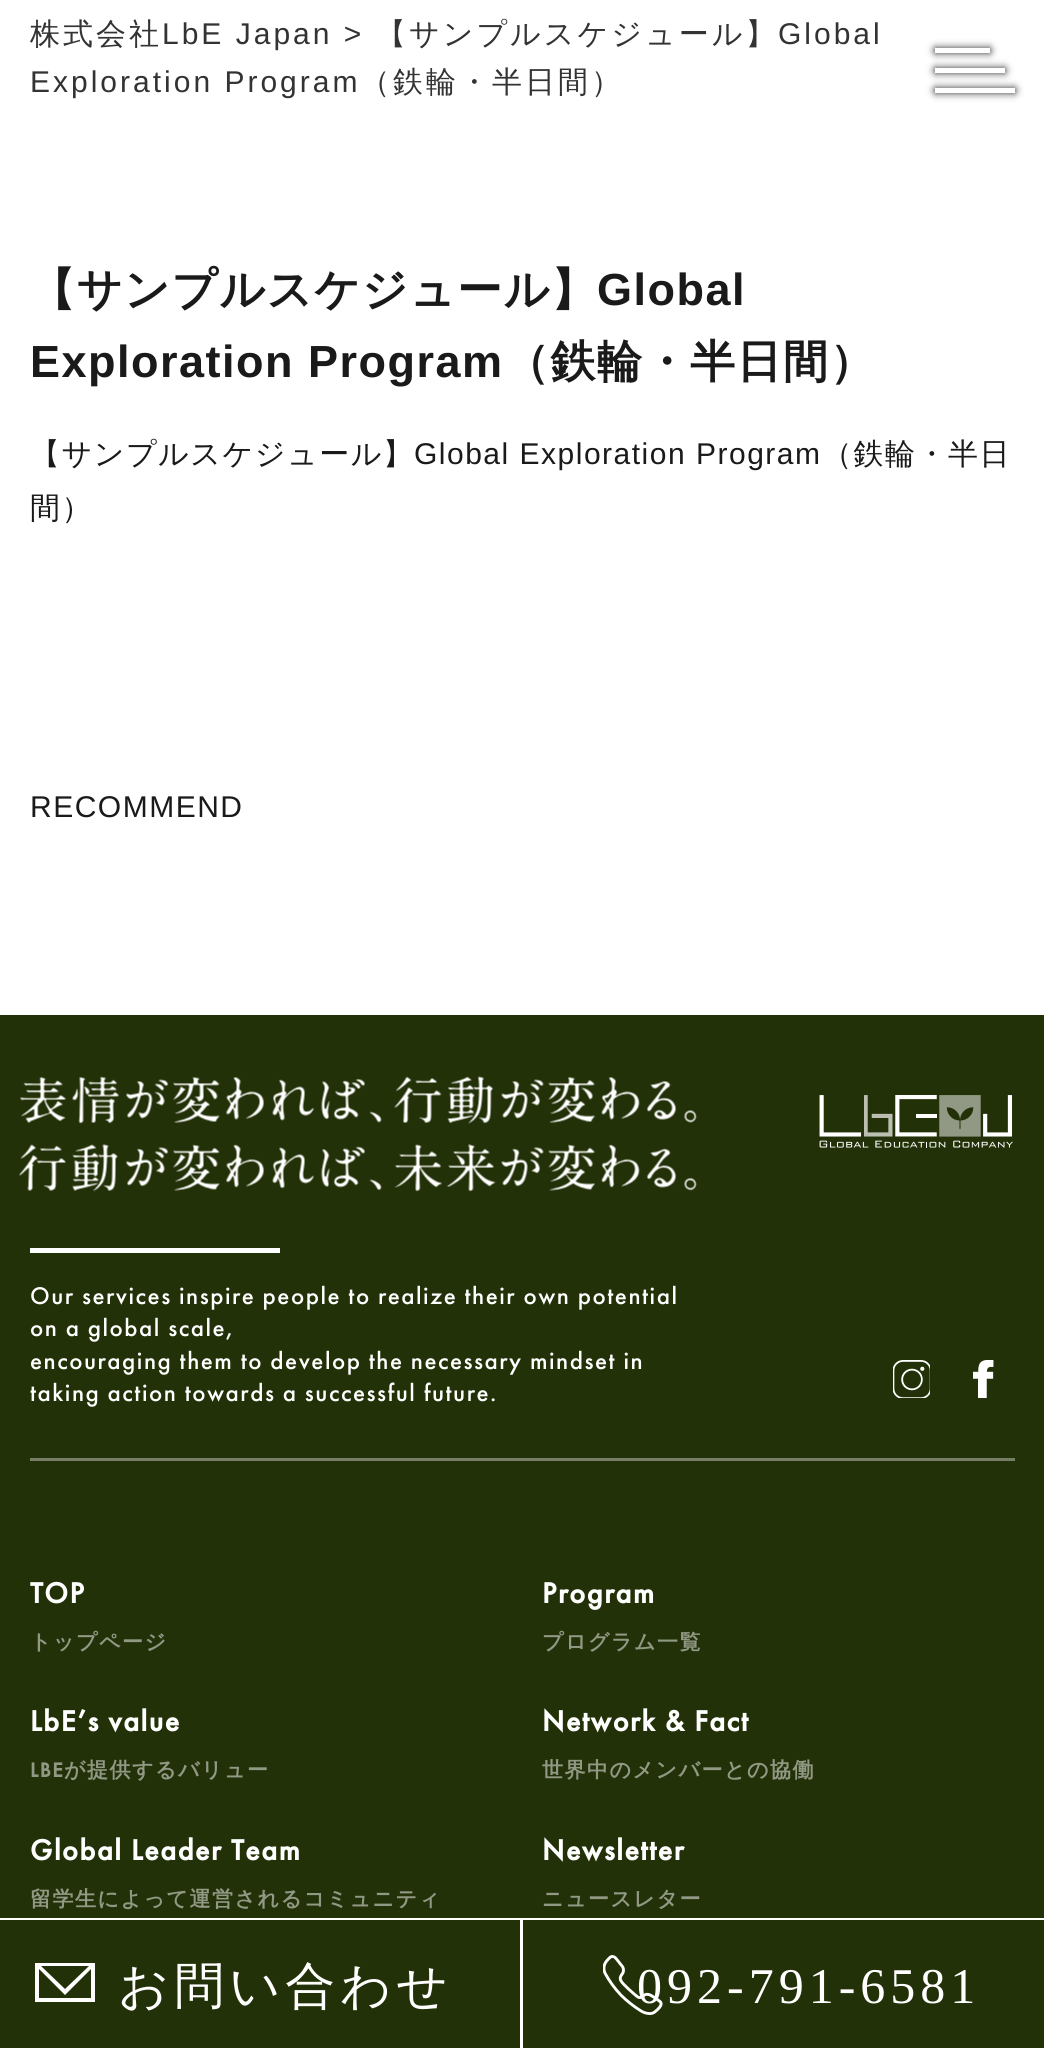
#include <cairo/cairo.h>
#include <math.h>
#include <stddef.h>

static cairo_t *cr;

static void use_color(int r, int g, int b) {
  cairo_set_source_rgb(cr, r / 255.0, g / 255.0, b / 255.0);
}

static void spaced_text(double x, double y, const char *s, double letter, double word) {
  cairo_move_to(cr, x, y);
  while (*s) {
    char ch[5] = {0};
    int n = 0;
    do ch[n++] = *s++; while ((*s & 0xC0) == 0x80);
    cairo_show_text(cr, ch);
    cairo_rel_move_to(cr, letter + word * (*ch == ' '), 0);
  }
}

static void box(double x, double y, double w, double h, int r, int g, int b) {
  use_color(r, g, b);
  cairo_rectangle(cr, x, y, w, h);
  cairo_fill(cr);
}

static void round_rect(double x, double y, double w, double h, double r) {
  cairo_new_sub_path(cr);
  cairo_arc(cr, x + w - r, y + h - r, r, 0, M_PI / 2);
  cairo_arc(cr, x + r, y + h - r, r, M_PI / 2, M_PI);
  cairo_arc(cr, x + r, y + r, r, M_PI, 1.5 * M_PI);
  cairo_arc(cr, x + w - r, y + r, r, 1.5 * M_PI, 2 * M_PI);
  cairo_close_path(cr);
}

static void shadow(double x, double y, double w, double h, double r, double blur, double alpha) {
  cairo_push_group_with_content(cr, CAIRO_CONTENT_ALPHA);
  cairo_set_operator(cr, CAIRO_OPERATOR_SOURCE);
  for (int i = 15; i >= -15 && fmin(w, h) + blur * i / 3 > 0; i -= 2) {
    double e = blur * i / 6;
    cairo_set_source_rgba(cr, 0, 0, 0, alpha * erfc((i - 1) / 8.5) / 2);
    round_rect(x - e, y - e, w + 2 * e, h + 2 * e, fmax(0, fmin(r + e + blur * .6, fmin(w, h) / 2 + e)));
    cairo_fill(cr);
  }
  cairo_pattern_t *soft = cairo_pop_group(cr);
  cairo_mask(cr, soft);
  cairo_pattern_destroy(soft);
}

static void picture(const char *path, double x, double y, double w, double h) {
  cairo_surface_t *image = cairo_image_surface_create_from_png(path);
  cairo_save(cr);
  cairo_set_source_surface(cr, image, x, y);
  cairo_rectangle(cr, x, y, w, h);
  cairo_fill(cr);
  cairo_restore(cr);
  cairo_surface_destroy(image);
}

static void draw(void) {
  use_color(255, 255, 255);
  cairo_paint(cr);
  use_color(0, 0, 0);
  shadow(935, 68, 70, 5, 0, 4, 0.8);
  box(935, 68, 70, 5, 255, 255, 255);
  use_color(0, 0, 0);
  shadow(935, 48, 55, 5, 0, 4, 0.8);
  box(935, 48, 55, 5, 255, 255, 255);
  use_color(0, 0, 0);
  shadow(935, 88, 80, 5, 0, 4, 0.8);
  box(935, 88, 80, 5, 255, 255, 255);
  box(0, 1015, 1044, 903, 35, 49, 8);
  box(30, 1458, 985, 3, 118, 126, 101);
  picture("img_01.png", 819, 1095, 194, 53);
  picture("img_02.png", 19, 1076, 678, 116);
  box(30, 1248, 250, 5, 255, 255, 255);
  picture("img_03.png", 893, 1360, 37, 38);
  picture("img_04.png", 973, 1360, 21, 38);
  box(0, 1920, 520, 128, 35, 49, 8);
  cairo_save(cr);
  cairo_rectangle(cr, 35, 1963, 60, 40);
  cairo_clip(cr);
  use_color(255, 255, 255);
  cairo_new_path(cr);
  cairo_move_to(cr, 35, 1962);
  cairo_line_to(cr, 35, 2002);
  cairo_line_to(cr, 95, 2002);
  cairo_line_to(cr, 95, 1962);
  cairo_close_path(cr);
  cairo_move_to(cr, 89, 1966);
  cairo_line_to(cr, 65, 1989);
  cairo_line_to(cr, 41, 1966);
  cairo_close_path(cr);
  cairo_move_to(cr, 91, 1998);
  cairo_line_to(cr, 39, 1998);
  cairo_line_to(cr, 39, 1969);
  cairo_line_to(cr, 65, 1995);
  cairo_line_to(cr, 91, 1969);
  cairo_close_path(cr);
  cairo_fill(cr);
  cairo_restore(cr);
  box(523, 1920, 521, 128, 35, 49, 8);
  cairo_select_font_face(cr, "WenQuanYi Zen Hei Medium", CAIRO_FONT_SLANT_NORMAL, CAIRO_FONT_WEIGHT_NORMAL);
  cairo_set_font_size(cr, 30);
  use_color(51, 51, 51);
  spaced_text(30, 44, "株式会社", 3, 0);
  cairo_select_font_face(cr, "Liberation Sans", CAIRO_FONT_SLANT_NORMAL, CAIRO_FONT_WEIGHT_NORMAL);
  spaced_text(162, 44, "LbE Japan >", 3, 0);
  cairo_select_font_face(cr, "WenQuanYi Zen Hei Medium", CAIRO_FONT_SLANT_NORMAL, CAIRO_FONT_WEIGHT_NORMAL);
  spaced_text(376, 44, "【サンプルスケジュール】", 3, 0);
  cairo_select_font_face(cr, "Liberation Sans", CAIRO_FONT_SLANT_NORMAL, CAIRO_FONT_WEIGHT_NORMAL);
  spaced_text(778, 44, "Global", 3, 0);
  spaced_text(30, 92, "Exploration Program", 3, 0);
  cairo_select_font_face(cr, "WenQuanYi Zen Hei Medium", CAIRO_FONT_SLANT_NORMAL, CAIRO_FONT_WEIGHT_NORMAL);
  spaced_text(360, 92, "（鉄輪・半日間）", 3, 0);
  cairo_select_font_face(cr, "WenQuanYi Zen Hei", CAIRO_FONT_SLANT_NORMAL, CAIRO_FONT_WEIGHT_BOLD);
  cairo_set_font_size(cr, 45);
  use_color(26, 26, 26);
  spaced_text(30, 305, "【サンプルスケジュール】", 1.5, 0);
  cairo_select_font_face(cr, "Liberation Sans", CAIRO_FONT_SLANT_NORMAL, CAIRO_FONT_WEIGHT_BOLD);
  spaced_text(597, 305, "Global", 1.5, 0);
  spaced_text(30, 377, "Exploration Program", 1.5, 0);
  cairo_select_font_face(cr, "WenQuanYi Zen Hei", CAIRO_FONT_SLANT_NORMAL, CAIRO_FONT_WEIGHT_BOLD);
  spaced_text(504, 377, "（鉄輪・半日間）", 1.5, 0);
  cairo_select_font_face(cr, "WenQuanYi Zen Hei Medium", CAIRO_FONT_SLANT_NORMAL, CAIRO_FONT_WEIGHT_NORMAL);
  cairo_set_font_size(cr, 30);
  spaced_text(30, 464, "【サンプルスケジュール】", 1.5, 0);
  cairo_select_font_face(cr, "Liberation Sans", CAIRO_FONT_SLANT_NORMAL, CAIRO_FONT_WEIGHT_NORMAL);
  spaced_text(414, 464, "Global Exploration Program", 1.5, 0);
  cairo_select_font_face(cr, "WenQuanYi Zen Hei Medium", CAIRO_FONT_SLANT_NORMAL, CAIRO_FONT_WEIGHT_NORMAL);
  spaced_text(822, 464, "（鉄輪・半日", 1.5, 0);
  spaced_text(30, 518, "間）", 1.5, 0);
  cairo_select_font_face(cr, "Liberation Sans", CAIRO_FONT_SLANT_NORMAL, CAIRO_FONT_WEIGHT_NORMAL);
  spaced_text(30, 817, "RECOMMEND", 1.5, 0);
  cairo_select_font_face(cr, "Futura PT Medium", CAIRO_FONT_SLANT_NORMAL, CAIRO_FONT_WEIGHT_NORMAL);
  cairo_set_font_size(cr, 25);
  use_color(255, 255, 255);
  spaced_text(30, 1304, "Our services inspire people to realize their own potential", 1.5, 0);
  spaced_text(30, 1336, "on a global scale,", 1.5, 0);
  spaced_text(30, 1369, "encouraging them to develop the necessary mindset in", 1.5, 0);
  spaced_text(30, 1401, "taking action towards a successful future.", 1.5, 0);
  cairo_select_font_face(cr, "Futura PT", CAIRO_FONT_SLANT_NORMAL, CAIRO_FONT_WEIGHT_BOLD);
  cairo_set_font_size(cr, 30);
  spaced_text(30, 1603, "TOP", 1.5, 0);
  cairo_select_font_face(cr, "WenQuanYi Zen Hei", CAIRO_FONT_SLANT_NORMAL, CAIRO_FONT_WEIGHT_BOLD);
  cairo_set_font_size(cr, 21);
  use_color(145, 152, 132);
  spaced_text(30, 1649, "トップページ", 1.5, 0);
  cairo_select_font_face(cr, "Futura PT", CAIRO_FONT_SLANT_NORMAL, CAIRO_FONT_WEIGHT_BOLD);
  cairo_set_font_size(cr, 30);
  use_color(255, 255, 255);
  spaced_text(542, 1603, "Program", 1.5, 0);
  cairo_select_font_face(cr, "WenQuanYi Zen Hei", CAIRO_FONT_SLANT_NORMAL, CAIRO_FONT_WEIGHT_BOLD);
  cairo_set_font_size(cr, 21);
  use_color(145, 152, 132);
  spaced_text(542, 1649, "プログラム一覧", 1.5, 0);
  cairo_select_font_face(cr, "Futura PT", CAIRO_FONT_SLANT_NORMAL, CAIRO_FONT_WEIGHT_BOLD);
  cairo_set_font_size(cr, 30);
  use_color(255, 255, 255);
  spaced_text(30, 1731, "LbE’s value", 1.5, 0);
  cairo_set_font_size(cr, 21);
  use_color(145, 152, 132);
  spaced_text(30, 1777, "LBE", 1.5, 0);
  cairo_select_font_face(cr, "WenQuanYi Zen Hei", CAIRO_FONT_SLANT_NORMAL, CAIRO_FONT_WEIGHT_BOLD);
  spaced_text(64, 1777, "が提供するバリュー", 1.5, 0);
  cairo_select_font_face(cr, "Futura PT", CAIRO_FONT_SLANT_NORMAL, CAIRO_FONT_WEIGHT_BOLD);
  cairo_set_font_size(cr, 30);
  use_color(255, 255, 255);
  spaced_text(542, 1731, "Network & Fact", 1.5, 0);
  cairo_select_font_face(cr, "WenQuanYi Zen Hei", CAIRO_FONT_SLANT_NORMAL, CAIRO_FONT_WEIGHT_BOLD);
  cairo_set_font_size(cr, 21);
  use_color(145, 152, 132);
  spaced_text(542, 1777, "世界中のメンバーとの協働", 1.5, 0);
  cairo_select_font_face(cr, "Futura PT", CAIRO_FONT_SLANT_NORMAL, CAIRO_FONT_WEIGHT_BOLD);
  cairo_set_font_size(cr, 30);
  use_color(255, 255, 255);
  spaced_text(30, 1860, "Global Leader Team", 1.5, 0);
  cairo_select_font_face(cr, "WenQuanYi Zen Hei", CAIRO_FONT_SLANT_NORMAL, CAIRO_FONT_WEIGHT_BOLD);
  cairo_set_font_size(cr, 21);
  use_color(145, 152, 132);
  spaced_text(30, 1906, "留学生によって運営されるコミュニティ", 1.5, 0);
  cairo_select_font_face(cr, "Futura PT", CAIRO_FONT_SLANT_NORMAL, CAIRO_FONT_WEIGHT_BOLD);
  cairo_set_font_size(cr, 30);
  use_color(255, 255, 255);
  spaced_text(542, 1860, "Newsletter", 1.5, 0);
  cairo_select_font_face(cr, "WenQuanYi Zen Hei", CAIRO_FONT_SLANT_NORMAL, CAIRO_FONT_WEIGHT_BOLD);
  cairo_set_font_size(cr, 21);
  use_color(145, 152, 132);
  spaced_text(542, 1906, "ニュースレター", 1.5, 0);
  cairo_select_font_face(cr, "WenQuanYi Zen Hei Medium", CAIRO_FONT_SLANT_NORMAL, CAIRO_FONT_WEIGHT_NORMAL);
  cairo_set_font_size(cr, 50);
  use_color(255, 255, 255);
  spaced_text(118, 2003, "お問い合わせ", 5, 0);
  cairo_select_font_face(cr, "Liberation Serif", CAIRO_FONT_SLANT_NORMAL, CAIRO_FONT_WEIGHT_NORMAL);
  spaced_text(637, 2003, "092-791-6581", 5, 0);
  picture("img_05.png", 603, 1955, 60, 60);
}

int main(void) {
  cairo_surface_t *surface = cairo_image_surface_create(CAIRO_FORMAT_RGB24, 1044, 2048);
  cr = cairo_create(surface);
  cairo_font_options_t *options = cairo_font_options_create();
  cairo_font_options_set_hint_metrics(options, CAIRO_HINT_METRICS_OFF);
  cairo_font_options_set_hint_style(options, CAIRO_HINT_STYLE_NONE);
  cairo_set_font_options(cr, options);
  cairo_set_miter_limit(cr, 4);
  draw();
  cairo_surface_write_to_png(surface, "out.png");
  cairo_font_options_destroy(options);
  cairo_destroy(cr);
  cairo_surface_destroy(surface);
  return 0;
}
